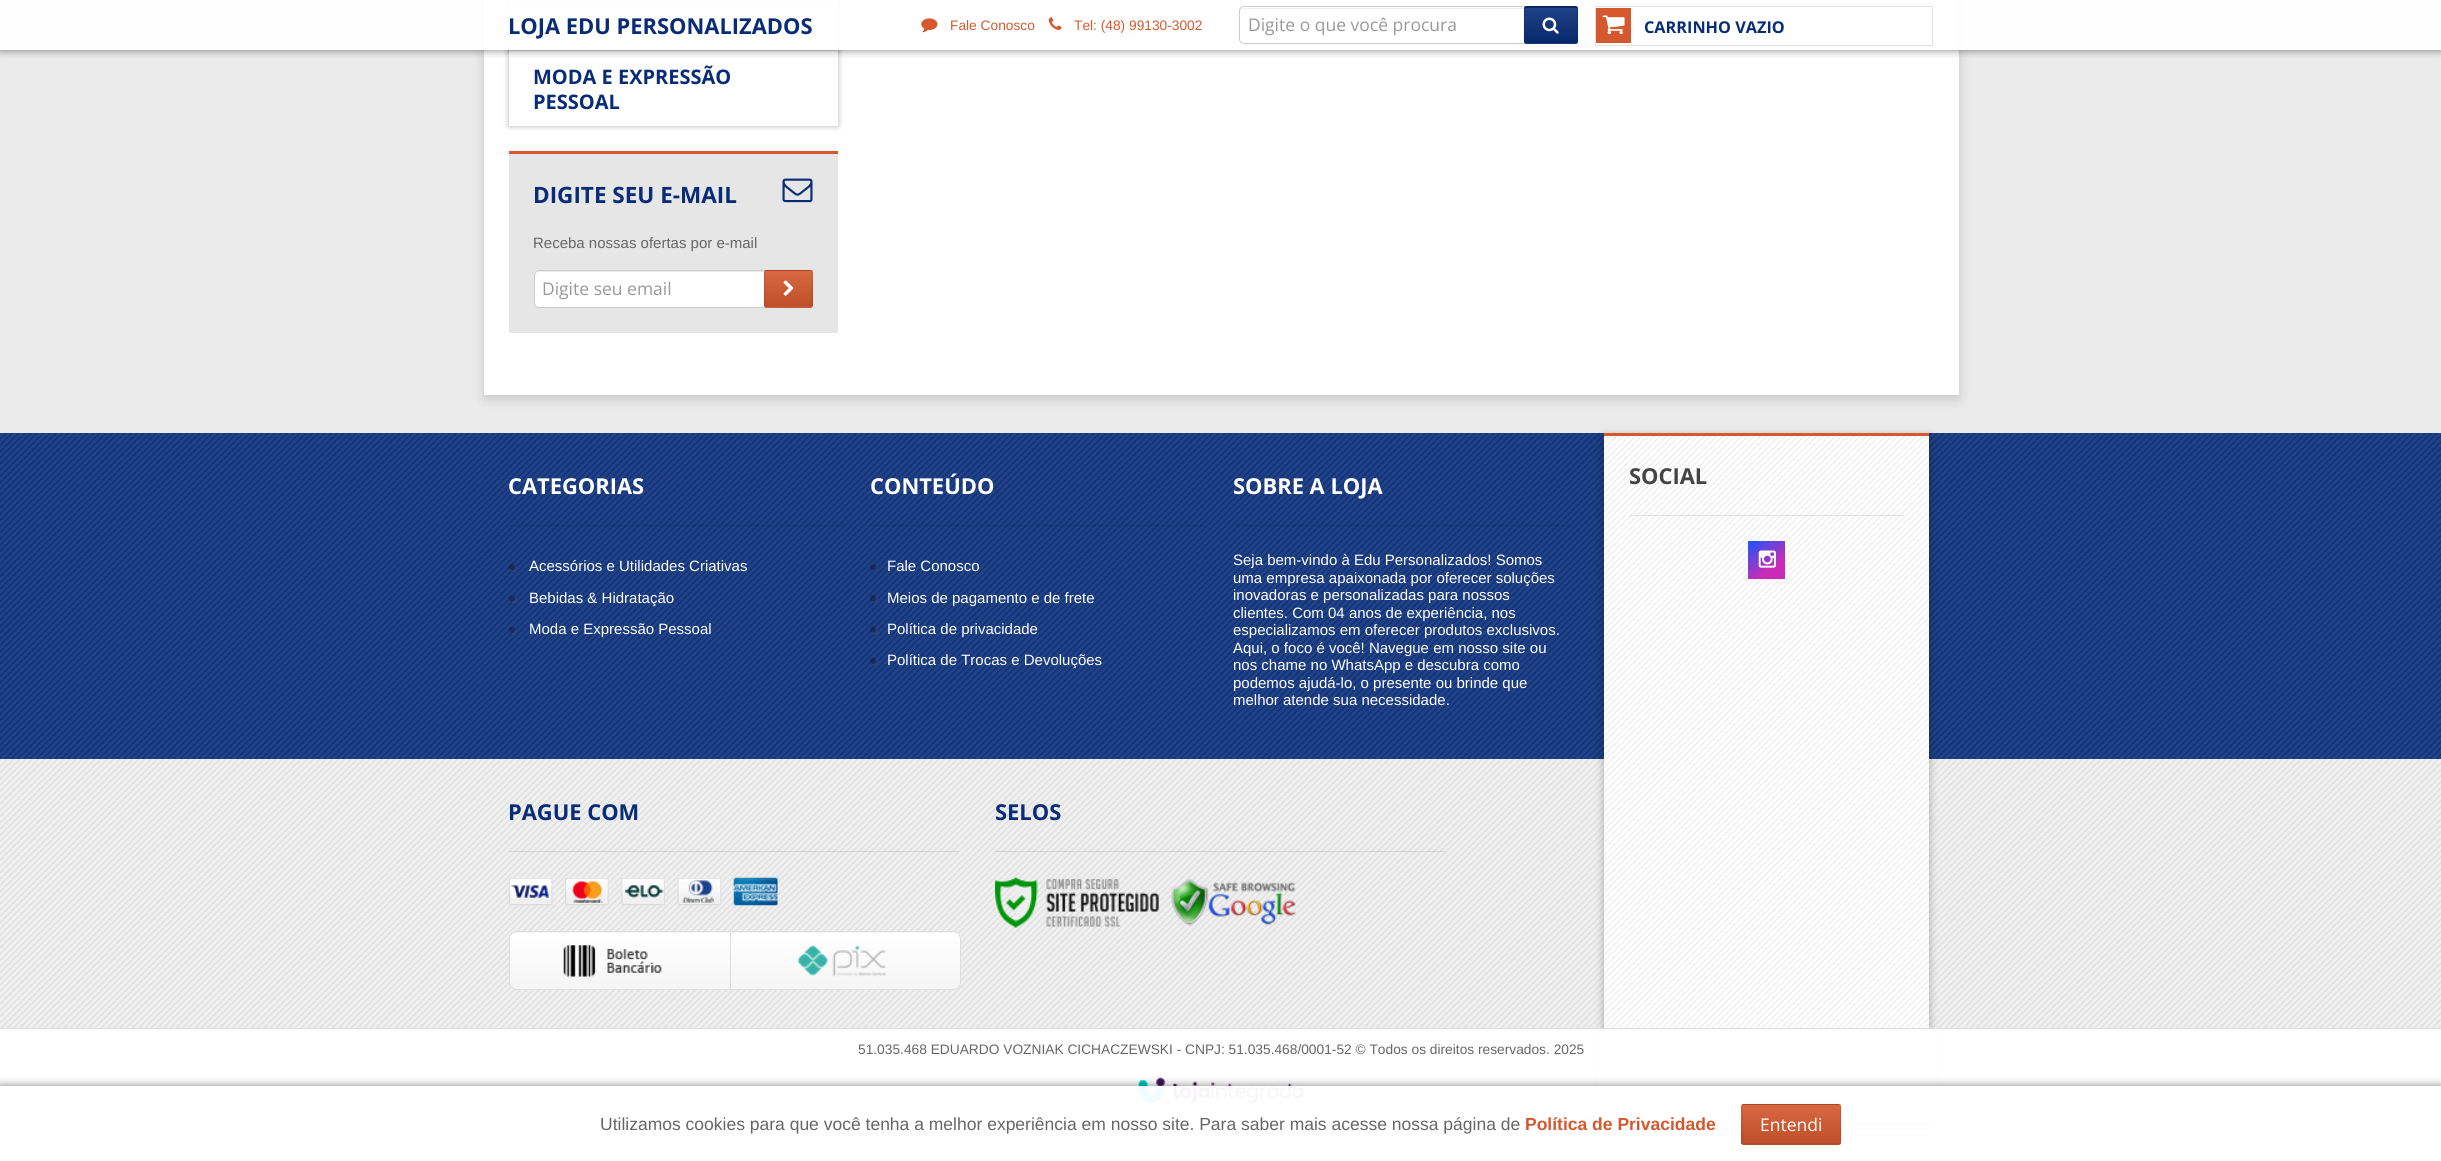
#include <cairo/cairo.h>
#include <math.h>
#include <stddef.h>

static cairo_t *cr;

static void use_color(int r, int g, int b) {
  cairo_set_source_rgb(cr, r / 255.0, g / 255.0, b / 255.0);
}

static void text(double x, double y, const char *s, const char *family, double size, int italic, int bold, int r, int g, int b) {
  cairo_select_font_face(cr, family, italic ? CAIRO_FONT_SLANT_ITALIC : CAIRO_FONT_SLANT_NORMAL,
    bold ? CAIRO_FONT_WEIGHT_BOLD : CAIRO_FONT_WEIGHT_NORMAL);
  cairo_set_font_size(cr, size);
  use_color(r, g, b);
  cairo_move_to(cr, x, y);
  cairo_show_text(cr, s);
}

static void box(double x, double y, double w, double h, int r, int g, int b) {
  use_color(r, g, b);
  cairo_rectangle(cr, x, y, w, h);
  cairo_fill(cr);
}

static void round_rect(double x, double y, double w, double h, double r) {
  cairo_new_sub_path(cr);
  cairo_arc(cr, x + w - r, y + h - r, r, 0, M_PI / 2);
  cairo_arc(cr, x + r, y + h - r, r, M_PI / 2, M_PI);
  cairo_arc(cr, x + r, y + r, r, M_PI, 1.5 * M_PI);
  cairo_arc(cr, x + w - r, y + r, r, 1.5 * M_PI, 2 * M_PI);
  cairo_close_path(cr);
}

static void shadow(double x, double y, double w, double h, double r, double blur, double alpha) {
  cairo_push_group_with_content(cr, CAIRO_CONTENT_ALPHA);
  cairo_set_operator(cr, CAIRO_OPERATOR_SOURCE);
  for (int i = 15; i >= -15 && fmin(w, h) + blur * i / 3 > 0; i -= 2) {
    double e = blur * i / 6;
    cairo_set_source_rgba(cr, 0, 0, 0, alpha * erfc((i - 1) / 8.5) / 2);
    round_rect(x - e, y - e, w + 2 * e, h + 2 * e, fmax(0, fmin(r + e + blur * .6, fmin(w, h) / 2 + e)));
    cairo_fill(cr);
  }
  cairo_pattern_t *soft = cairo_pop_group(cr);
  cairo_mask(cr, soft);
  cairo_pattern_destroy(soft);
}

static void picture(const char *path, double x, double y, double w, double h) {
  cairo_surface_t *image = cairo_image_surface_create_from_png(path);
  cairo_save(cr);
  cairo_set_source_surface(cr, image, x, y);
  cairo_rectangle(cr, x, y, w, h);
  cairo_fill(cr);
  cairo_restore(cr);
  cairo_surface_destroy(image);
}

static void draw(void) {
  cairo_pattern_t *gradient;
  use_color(255, 255, 255);
  cairo_paint(cr);
  box(0, 0, 2441, 433, 235, 235, 235);
  use_color(0, 0, 0);
  shadow(484, -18, 1475, 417, 0, 6, 0.15);
  box(484, 0, 1475, 395, 255, 255, 255);
  use_color(0, 0, 0);
  shadow(509, -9, 329, 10, 0, 3, 0.3);
  box(509, 0, 329, 1, 255, 255, 255);
  use_color(0, 0, 0);
  shadow(509, 1, 329, 50, 0, 3, 0.3);
  box(509, 1, 329, 50, 255, 255, 255);
  use_color(0, 0, 0);
  shadow(509, 51, 329, 75, 0, 3, 0.3);
  box(509, 51, 329, 75, 255, 255, 255);
  cairo_save(cr);
  cairo_rectangle(cr, 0, 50, 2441, 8);
  cairo_clip(cr);
  use_color(0, 0, 0);
  shadow(0, 0, 2441, 50, 0, 4.5, 0.5);
  cairo_restore(cr);
  cairo_set_source_rgba(cr, 1, 1, 1, 0.95);
  cairo_rectangle(cr, 0, 0, 2441, 50);
  cairo_fill(cr);
  picture("img_01.png", 921, 18, 17, 15);
  picture("img_02.png", 1048, 17, 14, 13);
  use_color(236, 236, 236);
  cairo_new_path(cr);
  cairo_move_to(cr, 1244, 9);
  cairo_line_to(cr, 1569, 9);
  cairo_curve_to(cr, 1571, 9, 1572, 10, 1572, 12);
  cairo_line_to(cr, 1572, 42);
  cairo_curve_to(cr, 1572, 41, 1573, 40, 1573, 39);
  cairo_line_to(cr, 1573, 12);
  cairo_curve_to(cr, 1573, 10, 1571, 8, 1569, 8);
  cairo_line_to(cr, 1244, 8);
  cairo_curve_to(cr, 1242, 8, 1240, 10, 1240, 12);
  cairo_curve_to(cr, 1240, 10, 1242, 9, 1244, 9);
  cairo_close_path(cr);
  cairo_fill(cr);
  round_rect(1239.5, 6.5, 334, 37, 4.5);
  use_color(204, 204, 204);
  cairo_set_line_width(cr, 1);
  cairo_stroke(cr);
  use_color(8, 44, 120);
  round_rect(1524, 6, 54, 38, 2.5);
  cairo_fill(cr);
  gradient = cairo_pattern_create_linear(1551, -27, 1551, 7.5);
  cairo_pattern_add_color_stop_rgba(gradient, 0, 1, 1, 1, 0.1);
  cairo_pattern_add_color_stop_rgba(gradient, 1, 0, 0, 0, 0.1);
  cairo_set_source(cr, gradient);
  cairo_pattern_destroy(gradient);
  cairo_rectangle(cr, 1524, 6, 54, 2);
  cairo_fill(cr);
  gradient = cairo_pattern_create_linear(1551, 7.5, 1551, 43);
  cairo_pattern_add_color_stop_rgba(gradient, 0, 1, 1, 1, 0.1);
  cairo_pattern_add_color_stop_rgba(gradient, 1, 0, 0, 0, 0.1);
  cairo_set_source(cr, gradient);
  cairo_pattern_destroy(gradient);
  cairo_rectangle(cr, 1524, 8, 54, 35);
  cairo_fill(cr);
  gradient = cairo_pattern_create_linear(1551, 43, 1551, 78);
  cairo_pattern_add_color_stop_rgba(gradient, 0, 1, 1, 1, 0.1);
  cairo_pattern_add_color_stop_rgba(gradient, 1, 0, 0, 0, 0.1);
  cairo_set_source(cr, gradient);
  cairo_pattern_destroy(gradient);
  cairo_rectangle(cr, 1524, 43, 54, 1);
  cairo_fill(cr);
  round_rect(1524.5, 6.5, 53, 37, 2);
  cairo_set_source_rgba(cr, 0, 0, 0, 0.13);
  cairo_stroke(cr);
  picture("img_03.png", 1542, 17, 17, 17);
  cairo_rectangle(cr, 1595.5, 6.5, 337, 39);
  cairo_set_source_rgba(cr, 0, 0, 0, 0.12);
  cairo_stroke(cr);
  box(1596, 8, 35, 35, 213, 88, 46);
  picture("img_04.png", 1602, 15, 23, 20);
  box(509, 154, 329, 179, 230, 230, 230);
  box(509, 151, 329, 3, 213, 88, 46);
  picture("img_05.png", 782, 178, 31, 25);
  use_color(255, 255, 255);
  round_rect(534, 270, 267, 38, 5);
  cairo_fill(cr);
  use_color(236, 236, 236);
  cairo_new_path(cr);
  cairo_move_to(cr, 539, 272);
  cairo_line_to(cr, 796, 272);
  cairo_curve_to(cr, 798, 272, 800, 274, 800, 276);
  cairo_line_to(cr, 800, 275);
  cairo_curve_to(cr, 800, 273, 798, 271, 796, 271);
  cairo_line_to(cr, 539, 271);
  cairo_curve_to(cr, 537, 271, 535, 273, 535, 275);
  cairo_line_to(cr, 535, 276);
  cairo_curve_to(cr, 535, 274, 537, 272, 539, 272);
  cairo_close_path(cr);
  cairo_fill(cr);
  round_rect(534.5, 270.5, 266, 37, 4.5);
  use_color(204, 204, 204);
  cairo_stroke(cr);
  use_color(213, 88, 46);
  round_rect(764, 270, 49, 38, 2.5);
  cairo_fill(cr);
  gradient = cairo_pattern_create_linear(788, 236, 788, 271);
  cairo_pattern_add_color_stop_rgba(gradient, 0, 1, 1, 1, 0.1);
  cairo_pattern_add_color_stop_rgba(gradient, 1, 0, 0, 0, 0.1);
  cairo_set_source(cr, gradient);
  cairo_pattern_destroy(gradient);
  cairo_rectangle(cr, 764, 270, 49, 1);
  cairo_fill(cr);
  gradient = cairo_pattern_create_linear(788, 271, 788, 306);
  cairo_pattern_add_color_stop_rgba(gradient, 0, 1, 1, 1, 0.1);
  cairo_pattern_add_color_stop_rgba(gradient, 1, 0, 0, 0, 0.1);
  cairo_set_source(cr, gradient);
  cairo_pattern_destroy(gradient);
  cairo_rectangle(cr, 764, 271, 49, 35);
  cairo_fill(cr);
  gradient = cairo_pattern_create_linear(788, 306, 788, 341);
  cairo_pattern_add_color_stop_rgba(gradient, 0, 1, 1, 1, 0.1);
  cairo_pattern_add_color_stop_rgba(gradient, 1, 0, 0, 0, 0.1);
  cairo_set_source(cr, gradient);
  cairo_pattern_destroy(gradient);
  cairo_rectangle(cr, 764, 306, 49, 2);
  cairo_fill(cr);
  cairo_new_path(cr);
  cairo_move_to(cr, 811.5, 306.5);
  cairo_line_to(cr, 811, 306.5);
  cairo_curve_to(cr, 810, 307.5, 766, 307, 765, 306.5);
  use_color(173, 83, 53);
  cairo_set_line_width(cr, 1.2);
  cairo_stroke(cr);
  cairo_new_path(cr);
  cairo_move_to(cr, 765, 306.5);
  cairo_curve_to(cr, 763.5, 305, 764.5, 291.5, 764.5, 289);
  cairo_line_to(cr, 764.5, 278);
  cairo_curve_to(cr, 764.5, 269, 763.5, 270.5, 773.5, 270.5);
  cairo_line_to(cr, 802.5, 270.5);
  cairo_curve_to(cr, 812.5, 270.5, 812, 269, 812, 278);
  cairo_line_to(cr, 812, 289);
  cairo_curve_to(cr, 812, 291.5, 813, 305, 811.5, 306.5);
  cairo_set_source_rgba(cr, 0, 0, 0, 0.1);
  cairo_stroke(cr);
  picture("img_06.png", 783, 280, 11, 16);
  box(0, 433, 2441, 326, 8, 44, 120);
  picture("img_07.png", 0, 432, 2441, 327);
  cairo_set_source_rgba(cr, 0, 0, 0, 0.1);
  cairo_rectangle(cr, 509, 525, 335, 1);
  cairo_fill(cr);
  picture("img_08.png", 508, 564, 9, 8);
  picture("img_09.png", 508, 595, 9, 8);
  picture("img_10.png", 508, 626, 9, 8);
  cairo_rectangle(cr, 870, 525, 335, 1);
  cairo_fill(cr);
  picture("img_11.png", 870, 564, 8, 8);
  picture("img_12.png", 870, 595, 8, 8);
  picture("img_13.png", 870, 626, 8, 8);
  picture("img_14.png", 870, 657, 8, 9);
  cairo_rectangle(cr, 1233, 525, 335, 1);
  cairo_fill(cr);
  box(0, 759, 2441, 269, 238, 238, 238);
  picture("img_17.png", 0, 759, 2441, 269);
  use_color(0, 0, 0);
  shadow(1604, 436, 325, 690, 0, 4.5, 0.3);
  box(1604, 436, 325, 592, 255, 255, 255);
  picture("img_15.png", 1603, 432, 326, 596);
  box(1604, 433, 325, 3, 213, 88, 46);
  cairo_set_source_rgba(cr, 0, 0, 0, 0.1);
  cairo_rectangle(cr, 1629, 515, 275, 1);
  cairo_fill(cr);
  gradient = cairo_pattern_create_linear(1751, 539, 1781, 581);
  cairo_pattern_add_color_stop_rgba(gradient, 0.1, 0.188, 0.318, 0.945, 1);
  cairo_pattern_add_color_stop_rgba(gradient, 0.7, 0.788, 0.169, 0.718, 1);
  cairo_set_source(cr, gradient);
  cairo_pattern_destroy(gradient);
  cairo_rectangle(cr, 1748, 541, 37, 38);
  cairo_fill(cr);
  picture("img_16.png", 1758, 550, 18, 18);
  cairo_set_source_rgba(cr, 0, 0, 0, 0.1);
  cairo_rectangle(cr, 509, 851, 450, 1);
  cairo_fill(cr);
  picture("img_18.png", 508, 878, 45, 28);
  picture("img_19.png", 565, 878, 44, 28);
  picture("img_20.png", 621, 878, 44, 28);
  picture("img_21.png", 677, 878, 45, 28);
  picture("img_22.png", 733, 877, 45, 29);
  cairo_save(cr);
  round_rect(509, 931, 452, 59, 8);
  cairo_clip(cr);
  gradient = cairo_pattern_create_linear(735, 876, 735, 933);
  cairo_pattern_add_color_stop_rgba(gradient, 0, 1, 1, 1, 1);
  cairo_pattern_add_color_stop_rgba(gradient, 1, 0.961, 0.961, 0.961, 1);
  cairo_set_source(cr, gradient);
  cairo_pattern_destroy(gradient);
  cairo_rectangle(cr, 509, 931, 452, 2);
  cairo_fill(cr);
  gradient = cairo_pattern_create_linear(735, 933, 735, 989);
  cairo_pattern_add_color_stop_rgba(gradient, 0, 1, 1, 1, 1);
  cairo_pattern_add_color_stop_rgba(gradient, 1, 0.961, 0.961, 0.961, 1);
  cairo_set_source(cr, gradient);
  cairo_pattern_destroy(gradient);
  cairo_rectangle(cr, 509, 933, 452, 56);
  cairo_fill(cr);
  cairo_restore(cr);
  round_rect(509.5, 931.5, 451, 58, 7.5);
  use_color(221, 221, 221);
  cairo_set_line_width(cr, 1);
  cairo_stroke(cr);
  picture("img_23.png", 563, 945, 99, 32);
  box(730, 933, 1, 56, 221, 221, 221);
  picture("img_24.png", 797, 945, 90, 32);
  cairo_set_source_rgba(cr, 0, 0, 0, 0.1);
  cairo_rectangle(cr, 995, 851, 451, 1);
  cairo_fill(cr);
  picture("img_25.png", 995, 877, 164, 51);
  picture("img_26.png", 1171, 879, 125, 47);
  box(1596, 1029, 341, 94, 255, 255, 255);
  box(0, 1028, 2441, 1, 221, 221, 221);
  picture("img_27.png", 1138, 1077, 166, 26);
  cairo_save(cr);
  cairo_set_fill_rule(cr, CAIRO_FILL_RULE_EVEN_ODD);
  cairo_new_path(cr);
  cairo_move_to(cr, 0, 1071);
  cairo_line_to(cr, 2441, 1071);
  cairo_line_to(cr, 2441, 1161);
  cairo_line_to(cr, 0, 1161);
  cairo_close_path(cr);
  cairo_move_to(cr, 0, 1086);
  cairo_line_to(cr, 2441, 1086);
  cairo_line_to(cr, 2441, 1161);
  cairo_line_to(cr, 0, 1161);
  cairo_close_path(cr);
  cairo_clip(cr);
  use_color(0, 0, 0);
  shadow(0, 1086, 2441, 75, 0, 4.5, 0.5);
  cairo_restore(cr);
  cairo_set_source_rgba(cr, 1, 1, 1, 0.95);
  cairo_rectangle(cr, 0, 1086, 2441, 48);
  cairo_fill(cr);
  use_color(213, 88, 46);
  round_rect(1741, 1104, 100, 41, 2.5);
  cairo_fill(cr);
  gradient = cairo_pattern_create_linear(1791, 1066, 1791, 1105);
  cairo_pattern_add_color_stop_rgba(gradient, 0, 1, 1, 1, 0.1);
  cairo_pattern_add_color_stop_rgba(gradient, 1, 0, 0, 0, 0.1);
  cairo_set_source(cr, gradient);
  cairo_pattern_destroy(gradient);
  cairo_rectangle(cr, 1741, 1104, 100, 1);
  cairo_fill(cr);
  gradient = cairo_pattern_create_linear(1791, 1105, 1791, 1144);
  cairo_pattern_add_color_stop_rgba(gradient, 0, 1, 1, 1, 0.1);
  cairo_pattern_add_color_stop_rgba(gradient, 1, 0, 0, 0, 0.1);
  cairo_set_source(cr, gradient);
  cairo_pattern_destroy(gradient);
  cairo_rectangle(cr, 1741, 1105, 100, 39);
  cairo_fill(cr);
  gradient = cairo_pattern_create_linear(1791, 1144, 1791, 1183);
  cairo_pattern_add_color_stop_rgba(gradient, 0, 1, 1, 1, 0.1);
  cairo_pattern_add_color_stop_rgba(gradient, 1, 0, 0, 0, 0.1);
  cairo_set_source(cr, gradient);
  cairo_pattern_destroy(gradient);
  cairo_rectangle(cr, 1741, 1144, 100, 1);
  cairo_fill(cr);
  cairo_new_path(cr);
  cairo_move_to(cr, 1840, 1144);
  cairo_line_to(cr, 1839, 1144.5);
  cairo_line_to(cr, 1759.5, 1144.5);
  cairo_line_to(cr, 1744, 1144.5);
  cairo_line_to(cr, 1742.5, 1144);
  cairo_set_source_rgba(cr, 0, 0, 0, 0.2);
  cairo_set_line_width(cr, 1.2);
  cairo_stroke(cr);
  cairo_new_path(cr);
  cairo_move_to(cr, 1742.5, 1144);
  cairo_curve_to(cr, 1741, 1142.5, 1742, 1127, 1742, 1124.5);
  cairo_line_to(cr, 1742, 1112.5);
  cairo_curve_to(cr, 1742, 1112, 1740.5, 1104.5, 1744, 1104.5);
  cairo_line_to(cr, 1839, 1104.5);
  cairo_curve_to(cr, 1842, 1104.5, 1840.5, 1112, 1840.5, 1112.5);
  cairo_line_to(cr, 1840.5, 1124.5);
  cairo_curve_to(cr, 1840.5, 1127, 1841.5, 1142.5, 1840, 1144);
  cairo_set_source_rgba(cr, 0, 0, 0, 0.1);
  cairo_stroke(cr);
  text(508, 34, "LOJA EDU PERSONALIZADOS", "Open Sans", 21.9, 0, 1, 8, 44, 120);
  text(950, 30, "Fale Conosco", "Liberation Sans", 13.75, 0, 0, 213, 88, 46);
  text(1074, 30, "Tel: (48) 99130-3002", "Liberation Sans", 13.75, 0, 0, 213, 88, 46);
  text(1248, 31, "Digite o que você procura", "Open Sans", 17.5, 0, 0, 153, 153, 153);
  text(1644, 33, "CARRINHO VAZIO", "Open Sans", 16.25, 0, 1, 8, 44, 120);
  text(533, 84, "MODA E EXPRESSÃO", "Open Sans", 20, 0, 1, 8, 44, 120);
  text(533, 109, "PESSOAL", "Open Sans", 20, 0, 1, 8, 44, 120);
  text(533, 203, "DIGITE SEU E-MAIL", "Open Sans", 22.5, 0, 1, 8, 44, 120);
  text(533, 248, "Receba nossas ofertas por e-mail", "Liberation Sans", 15, 0, 0, 102, 102, 102);
  text(542, 295, "Digite seu email", "Open Sans", 17.5, 0, 0, 153, 153, 153);
  text(508, 494, "CATEGORIAS", "Open Sans", 21.9, 0, 1, 255, 255, 255);
  text(529, 571, "Acessórios e Utilidades Criativas", "Liberation Sans", 15, 0, 0, 255, 255, 255);
  text(529, 603, "Bebidas & Hidratação", "Liberation Sans", 15, 0, 0, 255, 255, 255);
  text(529, 634, "Moda e Expressão Pessoal", "Liberation Sans", 15, 0, 0, 255, 255, 255);
  text(870, 494, "CONTEÚDO", "Open Sans", 21.9, 0, 1, 255, 255, 255);
  text(887, 571, "Fale Conosco", "Liberation Sans", 15, 0, 0, 255, 255, 255);
  text(887, 603, "Meios de pagamento e de frete", "Liberation Sans", 15, 0, 0, 255, 255, 255);
  text(887, 634, "Política de privacidade", "Liberation Sans", 15, 0, 0, 255, 255, 255);
  text(887, 665, "Política de Trocas e Devoluções", "Liberation Sans", 15, 0, 0, 255, 255, 255);
  text(1233, 494, "SOBRE A LOJA", "Open Sans", 21.9, 0, 1, 255, 255, 255);
  text(1233, 565, "Seja bem-vindo à Edu Personalizados! Somos", "Liberation Sans", 15, 0, 0, 255, 255, 255);
  text(1233, 583, "uma empresa apaixonada por oferecer soluções", "Liberation Sans", 15, 0, 0, 255, 255, 255);
  text(1233, 600, "inovadoras e personalizadas para nossos", "Liberation Sans", 15, 0, 0, 255, 255, 255);
  text(1233, 618, "clientes. Com 04 anos de experiência, nos", "Liberation Sans", 15, 0, 0, 255, 255, 255);
  text(1233, 635, "especializamos em oferecer produtos exclusivos.", "Liberation Sans", 15, 0, 0, 255, 255, 255);
  text(1233, 653, "Aqui, o foco é você! Navegue em nosso site ou", "Liberation Sans", 15, 0, 0, 255, 255, 255);
  text(1233, 670, "nos chame no WhatsApp e descubra como", "Liberation Sans", 15, 0, 0, 255, 255, 255);
  text(1233, 688, "podemos ajudá-lo, o presente ou brinde que", "Liberation Sans", 15, 0, 0, 255, 255, 255);
  text(1233, 705, "melhor atende sua necessidade.", "Liberation Sans", 15, 0, 0, 255, 255, 255);
  text(1629, 484, "SOCIAL", "Open Sans", 21.9, 0, 1, 68, 68, 68);
  text(508, 820, "PAGUE COM", "Open Sans", 21.9, 0, 1, 8, 44, 120);
  text(995, 820, "SELOS", "Open Sans", 21.9, 0, 1, 8, 44, 120);
  text(858, 1054, "51.035.468 EDUARDO VOZNIAK CICHACZEWSKI - CNPJ: 51.035.468/0001-52 © Todos os direitos reservados. 2025", "Liberation Sans", 13.75, 0, 0, 102, 102, 102);
  text(600, 1130, "Utilizamos cookies para que você tenha a melhor experiência em nosso site. Para saber mais acesse nossa página de", "Liberation Sans", 17.5, 0, 0, 102, 102, 102);
  text(1525, 1130, "Política de Privacidade", "Liberation Sans", 17.5, 0, 1, 213, 88, 46);
  text(1760, 1131, "Entendi", "Open Sans", 17.5, 0, 0, 255, 255, 255);
}

int main(void) {
  cairo_surface_t *surface = cairo_image_surface_create(CAIRO_FORMAT_RGB24, 2441, 1161);
  cr = cairo_create(surface);
  cairo_font_options_t *options = cairo_font_options_create();
  cairo_font_options_set_hint_metrics(options, CAIRO_HINT_METRICS_OFF);
  cairo_font_options_set_hint_style(options, CAIRO_HINT_STYLE_NONE);
  cairo_set_font_options(cr, options);
  cairo_set_miter_limit(cr, 4);
  draw();
  cairo_surface_write_to_png(surface, "out.png");
  cairo_font_options_destroy(options);
  cairo_destroy(cr);
  cairo_surface_destroy(surface);
  return 0;
}
